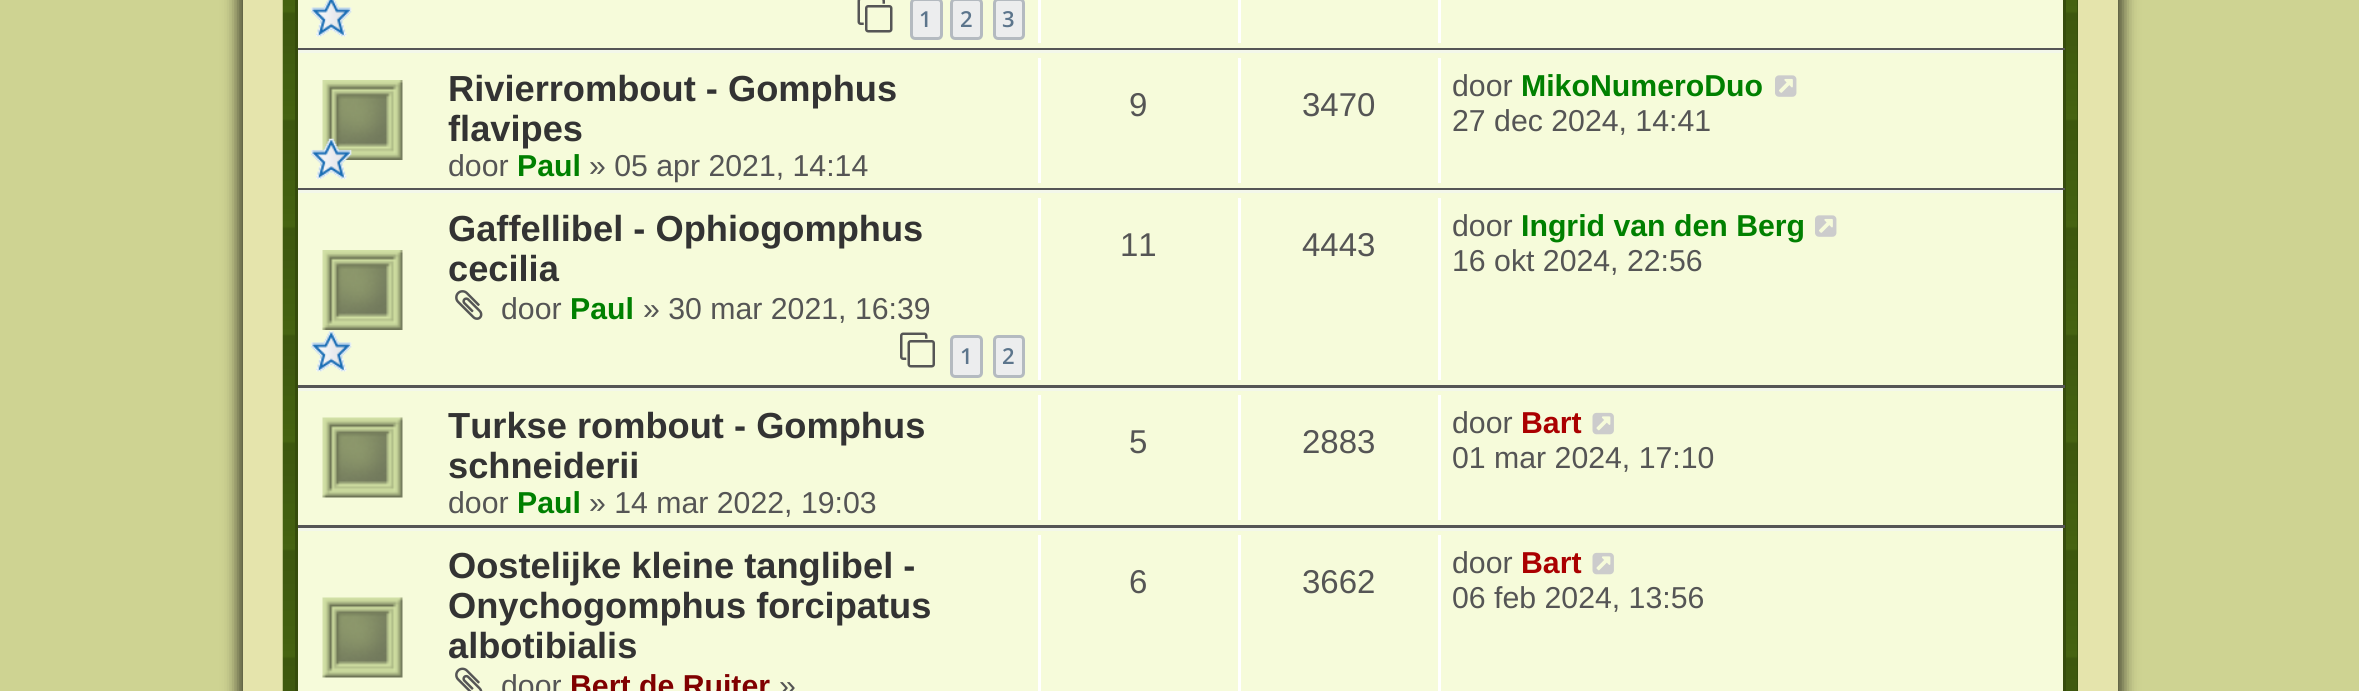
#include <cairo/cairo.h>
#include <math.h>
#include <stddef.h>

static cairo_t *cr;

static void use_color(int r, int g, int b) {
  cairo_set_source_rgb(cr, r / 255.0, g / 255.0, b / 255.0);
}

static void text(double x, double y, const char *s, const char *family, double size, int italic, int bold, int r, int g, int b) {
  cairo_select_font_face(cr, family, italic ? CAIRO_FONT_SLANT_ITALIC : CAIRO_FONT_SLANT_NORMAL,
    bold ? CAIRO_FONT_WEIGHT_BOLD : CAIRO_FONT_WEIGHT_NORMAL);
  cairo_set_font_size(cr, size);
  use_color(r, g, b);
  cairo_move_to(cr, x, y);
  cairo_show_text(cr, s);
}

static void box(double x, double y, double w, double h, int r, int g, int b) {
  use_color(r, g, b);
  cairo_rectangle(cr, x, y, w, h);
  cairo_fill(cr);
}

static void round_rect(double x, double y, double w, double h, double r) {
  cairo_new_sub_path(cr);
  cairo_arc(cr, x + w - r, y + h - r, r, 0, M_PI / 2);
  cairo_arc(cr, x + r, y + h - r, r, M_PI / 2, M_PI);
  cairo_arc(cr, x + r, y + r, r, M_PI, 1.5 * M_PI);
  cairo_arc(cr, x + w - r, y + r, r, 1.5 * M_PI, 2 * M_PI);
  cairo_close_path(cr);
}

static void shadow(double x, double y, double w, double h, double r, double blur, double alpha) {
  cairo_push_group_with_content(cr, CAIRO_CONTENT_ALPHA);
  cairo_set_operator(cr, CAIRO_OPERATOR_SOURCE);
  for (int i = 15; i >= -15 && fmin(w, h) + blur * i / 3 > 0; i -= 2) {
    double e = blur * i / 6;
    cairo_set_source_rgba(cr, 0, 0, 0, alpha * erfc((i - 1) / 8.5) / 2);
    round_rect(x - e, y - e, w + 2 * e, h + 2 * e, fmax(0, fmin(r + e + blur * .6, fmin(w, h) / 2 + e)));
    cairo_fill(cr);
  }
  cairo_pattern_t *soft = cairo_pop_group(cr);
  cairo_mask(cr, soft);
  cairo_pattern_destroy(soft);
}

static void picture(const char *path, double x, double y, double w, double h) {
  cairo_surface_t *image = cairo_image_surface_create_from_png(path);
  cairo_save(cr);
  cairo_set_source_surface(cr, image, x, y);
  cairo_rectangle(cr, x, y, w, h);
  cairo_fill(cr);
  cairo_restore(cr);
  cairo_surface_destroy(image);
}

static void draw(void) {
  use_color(206, 211, 146);
  cairo_paint(cr);
  use_color(2, 2, 2);
  shadow(238, -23, 1885, 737, 0, 7.5, 0.7);
  box(243, 0, 1875, 691, 229, 228, 172);
  box(2077, 0, 1, 691, 54, 76, 12);
  picture("img_01.png", 282, 0, 1796, 691);
  box(298, 0, 1765, 48, 246, 251, 218);
  box(2063, 0, 3, 50, 54, 76, 12);
  box(295, 48, 1770, 2, 85, 85, 85);
  box(295, 0, 3, 50, 54, 76, 12);
  picture("img_02.png", 311, 0, 41, 37);
  picture("img_03.png", 857, 0, 36, 33);
  use_color(236, 237, 238);
  round_rect(911.5, -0.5, 30, 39, 3.5);
  cairo_fill_preserve(cr);
  use_color(180, 186, 192);
  cairo_set_line_width(cr, 3);
  cairo_stroke(cr);
  use_color(236, 237, 238);
  round_rect(951.5, -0.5, 30, 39, 3.5);
  cairo_fill_preserve(cr);
  use_color(180, 186, 192);
  cairo_stroke(cr);
  use_color(236, 237, 238);
  round_rect(994.5, -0.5, 29, 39, 3.5);
  cairo_fill_preserve(cr);
  use_color(180, 186, 192);
  cairo_stroke(cr);
  box(1038, 0, 3, 43, 255, 255, 255);
  box(1238, 0, 3, 43, 255, 255, 255);
  box(1438, 0, 3, 43, 255, 255, 255);
  box(298, 53, 1765, 135, 246, 251, 218);
  box(295, 50, 1770, 3, 243, 247, 234);
  box(2063, 50, 3, 140, 54, 76, 12);
  box(295, 188, 1770, 2, 85, 85, 85);
  box(295, 50, 3, 140, 54, 76, 12);
  picture("img_04.png", 322, 80, 81, 80);
  picture("img_05.png", 311, 138, 41, 41);
  box(1038, 58, 3, 125, 255, 255, 255);
  box(1238, 58, 3, 125, 255, 255, 255);
  box(1438, 58, 3, 125, 255, 255, 255);
  picture("img_06.png", 1775, 75, 22, 22);
  box(298, 193, 1765, 192, 246, 251, 218);
  box(295, 190, 1770, 3, 243, 247, 234);
  box(2063, 190, 3, 198, 54, 76, 12);
  box(295, 385, 1770, 3, 85, 85, 85);
  box(295, 190, 3, 198, 54, 76, 12);
  picture("img_04.png", 322, 250, 81, 80);
  picture("img_07.png", 311, 331, 41, 41);
  picture("img_08.png", 455, 290, 28, 30);
  picture("img_09.png", 900, 332, 35, 36);
  use_color(236, 237, 238);
  round_rect(951.5, 336.5, 30, 40, 3.5);
  cairo_fill_preserve(cr);
  use_color(180, 186, 192);
  cairo_stroke(cr);
  use_color(236, 237, 238);
  round_rect(994.5, 336.5, 29, 40, 3.5);
  cairo_fill_preserve(cr);
  use_color(180, 186, 192);
  cairo_stroke(cr);
  box(1038, 198, 3, 182, 255, 255, 255);
  box(1238, 198, 3, 182, 255, 255, 255);
  box(1438, 198, 3, 182, 255, 255, 255);
  picture("img_06.png", 1815, 215, 22, 22);
  box(298, 391, 1765, 134, 246, 251, 218);
  box(295, 388, 1770, 3, 243, 247, 234);
  box(2063, 388, 3, 140, 54, 76, 12);
  box(295, 525, 1770, 3, 85, 85, 85);
  box(295, 388, 3, 140, 54, 76, 12);
  picture("img_10.png", 322, 417, 81, 81);
  box(1038, 395, 3, 125, 255, 255, 255);
  box(1238, 395, 3, 125, 255, 255, 255);
  box(1438, 395, 3, 125, 255, 255, 255);
  picture("img_11.png", 1592, 412, 22, 23);
  box(298, 531, 1765, 160, 246, 251, 218);
  box(295, 528, 1770, 3, 243, 247, 234);
  box(2063, 528, 3, 163, 54, 76, 12);
  box(295, 528, 3, 163, 54, 76, 12);
  picture("img_12.png", 322, 597, 81, 81);
  picture("img_13.png", 455, 667, 28, 24);
  box(1038, 535, 3, 156, 255, 255, 255);
  box(1238, 535, 3, 156, 255, 255, 255);
  box(1438, 535, 3, 156, 255, 255, 255);
  picture("img_11.png", 1592, 552, 22, 23);
  text(919, 27, "1", "Open Sans SemiBold", 22, 0, 0, 92, 117, 140);
  text(960, 27, "2", "Open Sans SemiBold", 22, 0, 0, 92, 117, 140);
  text(1002, 27, "3", "Open Sans SemiBold", 22, 0, 0, 92, 117, 140);
  text(448, 101, "Rivierrombout - Gomphus", "Liberation Sans", 36.25, 0, 1, 51, 51, 51);
  text(448, 141, "flavipes", "Liberation Sans", 36.25, 0, 1, 51, 51, 51);
  text(448, 176, "door", "Liberation Sans", 30.25, 0, 0, 85, 85, 85);
  text(517, 176, "Paul", "Liberation Sans", 30.25, 0, 1, 0, 128, 0);
  text(589, 176, "» 05 apr 2021, 14:14", "Liberation Sans", 30.25, 0, 0, 85, 85, 85);
  text(1129, 116, "9", "Liberation Sans", 33, 0, 0, 85, 85, 85);
  text(1302, 116, "3470", "Liberation Sans", 33, 0, 0, 85, 85, 85);
  text(1452, 96, "door", "Liberation Sans", 30.25, 0, 0, 85, 85, 85);
  text(1521, 96, "MikoNumeroDuo", "Liberation Sans", 30.25, 0, 1, 0, 128, 0);
  text(1452, 131, "27 dec 2024, 14:41", "Liberation Sans", 30.25, 0, 0, 85, 85, 85);
  text(448, 241, "Gaffellibel - Ophiogomphus", "Liberation Sans", 36.25, 0, 1, 51, 51, 51);
  text(448, 281, "cecilia", "Liberation Sans", 36.25, 0, 1, 51, 51, 51);
  text(501, 319, "door", "Liberation Sans", 30.25, 0, 0, 85, 85, 85);
  text(570, 319, "Paul", "Liberation Sans", 30.25, 0, 1, 0, 128, 0);
  text(643, 319, "» 30 mar 2021, 16:39", "Liberation Sans", 30.25, 0, 0, 85, 85, 85);
  text(960, 364, "1", "Open Sans SemiBold", 22, 0, 0, 92, 117, 140);
  text(1002, 364, "2", "Open Sans SemiBold", 22, 0, 0, 92, 117, 140);
  text(1120, 256, "11", "Liberation Sans", 33, 0, 0, 85, 85, 85);
  text(1302, 256, "4443", "Liberation Sans", 33, 0, 0, 85, 85, 85);
  text(1452, 236, "door", "Liberation Sans", 30.25, 0, 0, 85, 85, 85);
  text(1521, 236, "Ingrid van den Berg", "Liberation Sans", 30.25, 0, 1, 0, 128, 0);
  text(1452, 271, "16 okt 2024, 22:56", "Liberation Sans", 30.25, 0, 0, 85, 85, 85);
  text(448, 438, "Turkse rombout - Gomphus", "Liberation Sans", 36.25, 0, 1, 51, 51, 51);
  text(448, 478, "schneiderii", "Liberation Sans", 36.25, 0, 1, 51, 51, 51);
  text(448, 513, "door", "Liberation Sans", 30.25, 0, 0, 85, 85, 85);
  text(517, 513, "Paul", "Liberation Sans", 30.25, 0, 1, 0, 128, 0);
  text(589, 513, "» 14 mar 2022, 19:03", "Liberation Sans", 30.25, 0, 0, 85, 85, 85);
  text(1129, 453, "5", "Liberation Sans", 33, 0, 0, 85, 85, 85);
  text(1302, 453, "2883", "Liberation Sans", 33, 0, 0, 85, 85, 85);
  text(1452, 433, "door", "Liberation Sans", 30.25, 0, 0, 85, 85, 85);
  text(1521, 433, "Bart", "Liberation Sans", 30.25, 0, 1, 170, 0, 0);
  text(1452, 468, "01 mar 2024, 17:10", "Liberation Sans", 30.25, 0, 0, 85, 85, 85);
  text(448, 578, "Oostelijke kleine tanglibel -", "Liberation Sans", 36.25, 0, 1, 51, 51, 51);
  text(448, 618, "Onychogomphus forcipatus", "Liberation Sans", 36.25, 0, 1, 51, 51, 51);
  text(448, 658, "albotibialis", "Liberation Sans", 36.25, 0, 1, 51, 51, 51);
  text(501, 696, "door", "Liberation Sans", 30.25, 0, 0, 85, 85, 85);
  text(570, 696, "Bert de Ruiter", "Liberation Sans", 30.25, 0, 1, 128, 0, 0);
  text(779, 696, "»", "Liberation Sans", 30.25, 0, 0, 85, 85, 85);
  text(1129, 593, "6", "Liberation Sans", 33, 0, 0, 85, 85, 85);
  text(1302, 593, "3662", "Liberation Sans", 33, 0, 0, 85, 85, 85);
  text(1452, 573, "door", "Liberation Sans", 30.25, 0, 0, 85, 85, 85);
  text(1521, 573, "Bart", "Liberation Sans", 30.25, 0, 1, 170, 0, 0);
  text(1452, 608, "06 feb 2024, 13:56", "Liberation Sans", 30.25, 0, 0, 85, 85, 85);
}

int main(void) {
  cairo_surface_t *surface = cairo_image_surface_create(CAIRO_FORMAT_RGB24, 2359, 691);
  cr = cairo_create(surface);
  cairo_font_options_t *options = cairo_font_options_create();
  cairo_font_options_set_hint_metrics(options, CAIRO_HINT_METRICS_OFF);
  cairo_font_options_set_hint_style(options, CAIRO_HINT_STYLE_NONE);
  cairo_set_font_options(cr, options);
  cairo_set_miter_limit(cr, 4);
  draw();
  cairo_surface_write_to_png(surface, "out.png");
  cairo_font_options_destroy(options);
  cairo_destroy(cr);
  cairo_surface_destroy(surface);
  return 0;
}
